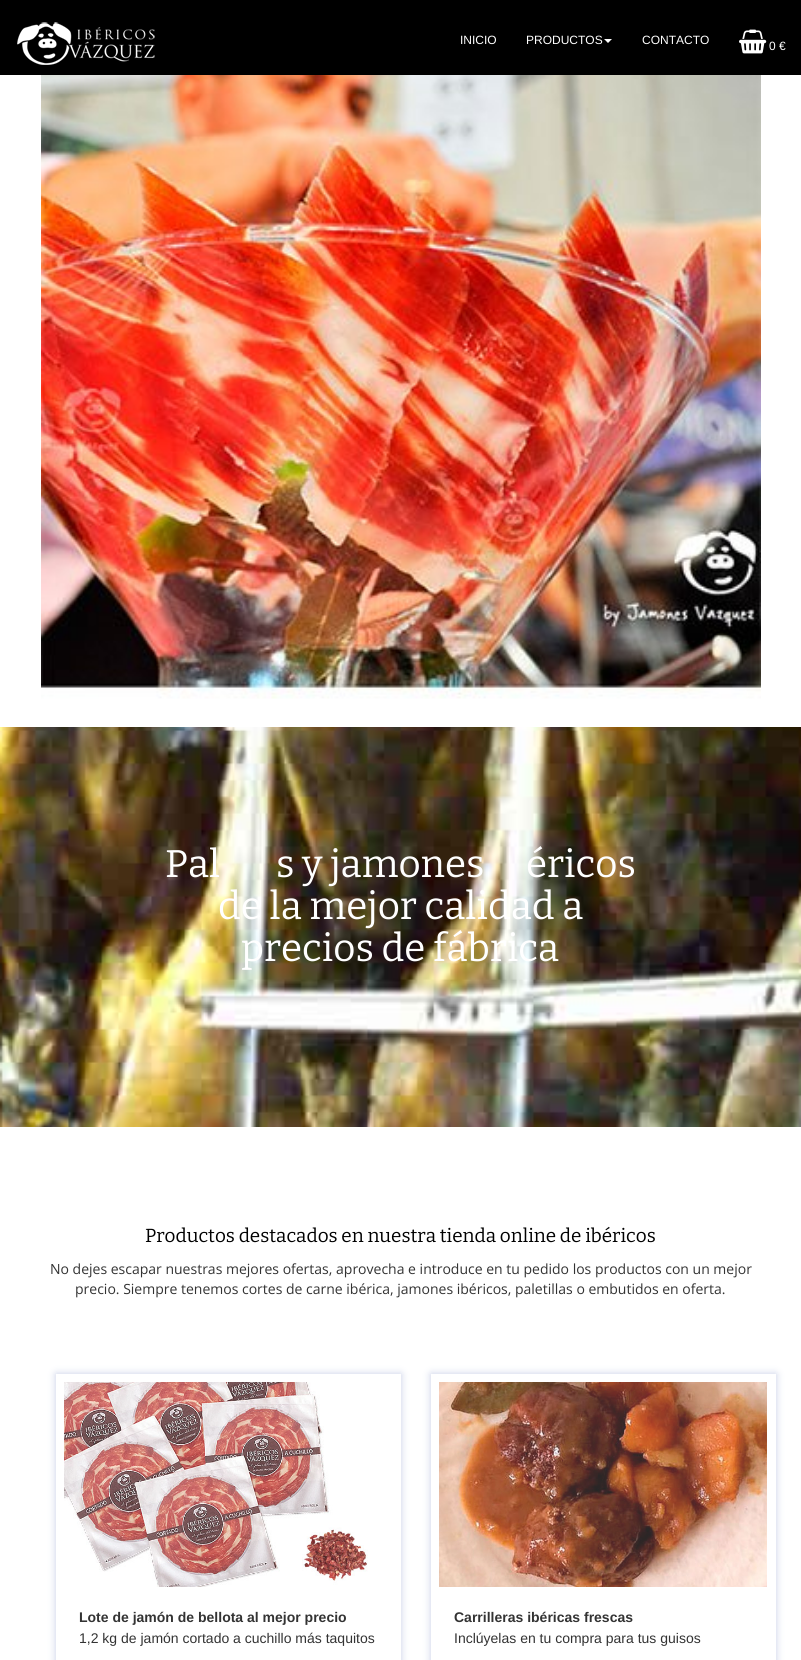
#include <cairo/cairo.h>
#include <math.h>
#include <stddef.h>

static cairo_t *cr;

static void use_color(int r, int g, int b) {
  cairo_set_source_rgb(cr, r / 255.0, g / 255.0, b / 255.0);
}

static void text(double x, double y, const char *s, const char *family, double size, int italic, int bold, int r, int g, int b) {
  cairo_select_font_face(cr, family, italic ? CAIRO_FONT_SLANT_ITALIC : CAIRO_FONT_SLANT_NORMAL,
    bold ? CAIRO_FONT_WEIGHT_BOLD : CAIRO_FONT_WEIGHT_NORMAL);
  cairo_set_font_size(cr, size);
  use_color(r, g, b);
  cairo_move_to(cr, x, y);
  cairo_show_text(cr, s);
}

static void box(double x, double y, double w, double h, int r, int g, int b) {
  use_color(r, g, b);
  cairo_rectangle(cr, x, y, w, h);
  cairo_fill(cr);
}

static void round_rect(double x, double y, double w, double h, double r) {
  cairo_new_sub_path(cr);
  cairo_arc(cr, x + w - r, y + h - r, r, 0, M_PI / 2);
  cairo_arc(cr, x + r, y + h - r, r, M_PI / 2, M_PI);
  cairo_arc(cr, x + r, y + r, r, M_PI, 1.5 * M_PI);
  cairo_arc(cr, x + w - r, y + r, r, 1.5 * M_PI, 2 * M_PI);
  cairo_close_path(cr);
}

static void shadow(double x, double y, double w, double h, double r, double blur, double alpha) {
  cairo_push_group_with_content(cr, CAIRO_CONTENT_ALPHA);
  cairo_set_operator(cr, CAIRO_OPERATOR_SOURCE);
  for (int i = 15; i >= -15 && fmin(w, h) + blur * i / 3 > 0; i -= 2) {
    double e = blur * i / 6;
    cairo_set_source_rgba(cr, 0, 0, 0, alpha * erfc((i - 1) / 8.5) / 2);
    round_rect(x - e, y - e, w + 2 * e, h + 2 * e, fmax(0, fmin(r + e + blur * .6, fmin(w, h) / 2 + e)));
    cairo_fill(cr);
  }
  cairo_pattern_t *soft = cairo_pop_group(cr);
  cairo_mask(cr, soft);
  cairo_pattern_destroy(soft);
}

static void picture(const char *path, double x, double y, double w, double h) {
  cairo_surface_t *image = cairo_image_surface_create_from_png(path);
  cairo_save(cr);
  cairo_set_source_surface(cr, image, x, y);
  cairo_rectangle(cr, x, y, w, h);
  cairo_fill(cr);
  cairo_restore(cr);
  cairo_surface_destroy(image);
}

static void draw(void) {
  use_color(255, 255, 255);
  cairo_paint(cr);
  box(0, 0, 801, 75, 0, 0, 0);
  picture("img_01.png", 17, 22, 138, 43);
  use_color(255, 255, 255);
  cairo_new_path(cr);
  cairo_move_to(cr, 604, 39);
  cairo_line_to(cr, 612, 39);
  cairo_line_to(cr, 608, 43);
  cairo_close_path(cr);
  cairo_fill(cr);
  picture("img_02.png", 739, 29, 28, 25);
  picture("img_03.png", 41, 75, 720, 624);
  picture("img_04.png", 0, 727, 801, 400);
  cairo_save(cr);
  cairo_set_fill_rule(cr, CAIRO_FILL_RULE_EVEN_ODD);
  cairo_new_path(cr);
  cairo_move_to(cr, 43, 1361);
  cairo_line_to(cr, 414, 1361);
  cairo_line_to(cr, 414, 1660);
  cairo_line_to(cr, 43, 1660);
  cairo_close_path(cr);
  cairo_move_to(cr, 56, 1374);
  cairo_line_to(cr, 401, 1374);
  cairo_line_to(cr, 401, 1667);
  cairo_line_to(cr, 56, 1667);
  cairo_close_path(cr);
  cairo_clip(cr);
  use_color(200, 207, 230);
  shadow(56, 1374, 345, 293, 0, 4, 1);
  cairo_restore(cr);
  picture("img_05.png", 64, 1382, 304, 205);
  cairo_save(cr);
  cairo_set_fill_rule(cr, CAIRO_FILL_RULE_EVEN_ODD);
  cairo_new_path(cr);
  cairo_move_to(cr, 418, 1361);
  cairo_line_to(cr, 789, 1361);
  cairo_line_to(cr, 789, 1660);
  cairo_line_to(cr, 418, 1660);
  cairo_close_path(cr);
  cairo_move_to(cr, 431, 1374);
  cairo_line_to(cr, 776, 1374);
  cairo_line_to(cr, 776, 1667);
  cairo_line_to(cr, 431, 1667);
  cairo_close_path(cr);
  cairo_clip(cr);
  use_color(200, 207, 230);
  shadow(431, 1374, 345, 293, 0, 4, 1);
  cairo_restore(cr);
  picture("img_06.png", 439, 1382, 328, 205);
  text(460, 44, "INICIO", "Liberation Sans", 12, 0, 0, 255, 255, 255);
  text(526, 44, "PRODUCTOS", "Liberation Sans", 12, 0, 0, 255, 255, 255);
  text(642, 44, "CONTACTO", "Liberation Sans", 12, 0, 0, 255, 255, 255);
  text(769, 50, "0 €", "Liberation Sans", 12, 0, 0, 255, 255, 255);
  text(165, 877, "Pal", "Bitter", 38.5, 0, 0, 255, 255, 255);
  text(276, 877, "s y jamones", "Bitter", 38.5, 0, 0, 255, 255, 255);
  text(526, 877, "éricos", "Bitter", 38.5, 0, 0, 255, 255, 255);
  text(218, 919, "de la mejor calidad a", "Bitter", 38.5, 0, 0, 255, 255, 255);
  text(241, 961, "precios de fábrica", "Bitter", 38.5, 0, 0, 255, 255, 255);
  text(145, 1242, "Productos destacados en nuestra tienda online de ibéricos", "Bitter", 18.9, 0, 0, 0, 0, 0);
  text(50, 1274, "No dejes escapar nuestras mejores ofertas, aprovecha e introduce en tu pedido los productos con un mejor", "Open Sans", 14, 0, 0, 51, 51, 51);
  text(75, 1294, "precio. Siempre tenemos cortes de carne ibérica, jamones ibéricos, paletillas o embutidos en oferta.", "Open Sans", 14, 0, 0, 51, 51, 51);
  text(79, 1622, "Lote de jamón de bellota al mejor precio", "Liberation Sans", 14, 0, 1, 51, 51, 51);
  text(79, 1643, "1,2 kg de jamón cortado a cuchillo más taquitos", "Liberation Sans", 14, 0, 0, 51, 51, 51);
  text(454, 1622, "Carrilleras ibéricas frescas", "Liberation Sans", 14, 0, 1, 51, 51, 51);
  text(454, 1643, "Inclúyelas en tu compra para tus guisos", "Liberation Sans", 14, 0, 0, 51, 51, 51);
}

int main(void) {
  cairo_surface_t *surface = cairo_image_surface_create(CAIRO_FORMAT_RGB24, 801, 1660);
  cr = cairo_create(surface);
  cairo_font_options_t *options = cairo_font_options_create();
  cairo_font_options_set_hint_metrics(options, CAIRO_HINT_METRICS_OFF);
  cairo_font_options_set_hint_style(options, CAIRO_HINT_STYLE_NONE);
  cairo_set_font_options(cr, options);
  cairo_set_miter_limit(cr, 4);
  draw();
  cairo_surface_write_to_png(surface, "out.png");
  cairo_font_options_destroy(options);
  cairo_destroy(cr);
  cairo_surface_destroy(surface);
  return 0;
}
